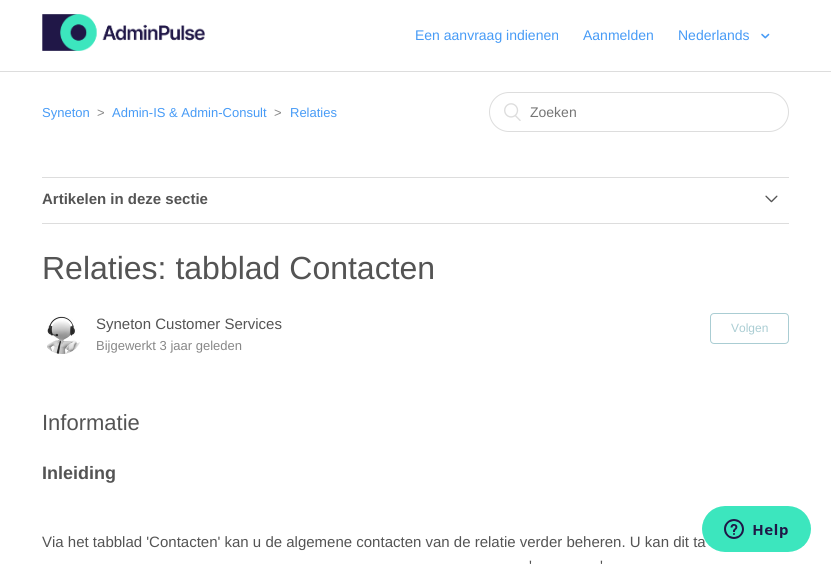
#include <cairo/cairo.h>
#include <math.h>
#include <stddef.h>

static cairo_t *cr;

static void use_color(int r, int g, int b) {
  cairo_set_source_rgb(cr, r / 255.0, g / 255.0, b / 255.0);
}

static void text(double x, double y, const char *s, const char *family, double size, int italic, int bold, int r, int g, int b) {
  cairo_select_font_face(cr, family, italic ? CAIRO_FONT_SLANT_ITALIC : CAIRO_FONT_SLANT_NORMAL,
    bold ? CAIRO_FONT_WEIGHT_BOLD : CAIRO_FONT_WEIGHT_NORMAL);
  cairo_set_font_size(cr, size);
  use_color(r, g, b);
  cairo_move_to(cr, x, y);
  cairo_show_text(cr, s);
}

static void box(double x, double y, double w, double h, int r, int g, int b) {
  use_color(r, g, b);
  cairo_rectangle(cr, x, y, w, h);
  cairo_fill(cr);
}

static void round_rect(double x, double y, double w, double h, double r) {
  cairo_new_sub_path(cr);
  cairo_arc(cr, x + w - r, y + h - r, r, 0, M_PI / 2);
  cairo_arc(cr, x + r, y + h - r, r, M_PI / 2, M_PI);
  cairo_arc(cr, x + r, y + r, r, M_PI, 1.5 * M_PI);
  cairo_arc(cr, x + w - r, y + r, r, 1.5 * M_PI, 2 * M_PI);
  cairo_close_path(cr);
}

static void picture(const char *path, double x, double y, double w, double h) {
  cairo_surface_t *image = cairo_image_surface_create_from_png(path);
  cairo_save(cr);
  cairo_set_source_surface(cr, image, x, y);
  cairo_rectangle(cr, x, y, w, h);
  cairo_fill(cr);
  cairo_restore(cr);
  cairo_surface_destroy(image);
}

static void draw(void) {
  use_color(255, 255, 255);
  cairo_paint(cr);
  picture("img_01.png", 42, 14, 163, 37);
  picture("img_02.png", 761, 33, 9, 6);
  box(0, 71, 831, 1, 221, 221, 221);
  round_rect(489.5, 92.5, 299, 39, 19.5);
  cairo_set_line_width(cr, 1);
  cairo_stroke(cr);
  picture("img_03.png", 504, 103, 17, 18);
  box(42, 177, 747, 1, 221, 221, 221);
  box(42, 223, 747, 1, 221, 221, 221);
  picture("img_04.png", 765, 195, 13, 8);
  picture("img_05.png", 47, 316, 33, 38);
  round_rect(710.5, 313.5, 78, 30, 3.5);
  use_color(170, 205, 211);
  cairo_stroke(cr);
  text(415, 40, "Een aanvraag indienen", "Liberation Sans", 14, 0, 0, 71, 155, 246);
  text(583, 40, "Aanmelden", "Liberation Sans", 14, 0, 0, 71, 155, 246);
  text(678, 40, "Nederlands", "Liberation Sans", 14, 0, 0, 71, 155, 246);
  text(42, 117, "Syneton", "Liberation Sans", 13, 0, 0, 71, 155, 246);
  text(97, 117, ">", "Liberation Sans", 13, 0, 0, 135, 135, 135);
  text(112, 117, "Admin-IS & Admin-Consult", "Liberation Sans", 13, 0, 0, 71, 155, 246);
  text(274, 117, ">", "Liberation Sans", 13, 0, 0, 135, 135, 135);
  text(290, 117, "Relaties", "Liberation Sans", 13, 0, 0, 71, 155, 246);
  text(530, 117, "Zoeken", "Liberation Sans", 14, 0, 0, 117, 117, 117);
  text(42, 204, "Artikelen in deze sectie", "Liberation Sans", 15, 0, 1, 84, 84, 84);
  text(42, 279, "Relaties: tabblad Contacten", "Liberation Sans", 32, 0, 0, 84, 84, 84);
  text(96, 329, "Syneton Customer Services", "Liberation Sans", 15, 0, 0, 84, 84, 84);
  text(96, 350, "Bijgewerkt 3 jaar geleden", "Liberation Sans", 13, 0, 0, 135, 135, 135);
  text(731, 332, "Volgen", "Liberation Sans", 12, 0, 0, 170, 205, 211);
  text(42, 430, "Informatie", "Liberation Sans", 22, 0, 0, 84, 84, 84);
  text(42, 479, "Inleiding", "Liberation Sans", 18, 0, 1, 84, 84, 84);
  text(42, 547, "Via het tabblad 'Contacten' kan u de algemene contacten van de relatie verder beheren. U kan dit ta", "Liberation Sans", 15, 0, 0, 84, 84, 84);
  text(529, 571, "'", "Liberation Sans", 15, 0, 0, 84, 84, 84);
  text(600, 571, "'", "Liberation Sans", 15, 0, 0, 84, 84, 84);
  picture("img_06.png", 702, 506, 109, 46);
}

int main(void) {
  cairo_surface_t *surface = cairo_image_surface_create(CAIRO_FORMAT_RGB24, 831, 566);
  cr = cairo_create(surface);
  cairo_font_options_t *options = cairo_font_options_create();
  cairo_font_options_set_hint_metrics(options, CAIRO_HINT_METRICS_OFF);
  cairo_font_options_set_hint_style(options, CAIRO_HINT_STYLE_NONE);
  cairo_set_font_options(cr, options);
  cairo_set_miter_limit(cr, 4);
  draw();
  cairo_surface_write_to_png(surface, "out.png");
  cairo_font_options_destroy(options);
  cairo_destroy(cr);
  cairo_surface_destroy(surface);
  return 0;
}
